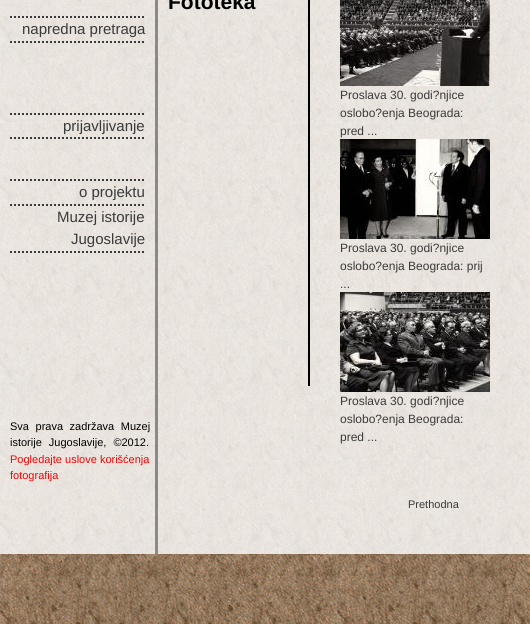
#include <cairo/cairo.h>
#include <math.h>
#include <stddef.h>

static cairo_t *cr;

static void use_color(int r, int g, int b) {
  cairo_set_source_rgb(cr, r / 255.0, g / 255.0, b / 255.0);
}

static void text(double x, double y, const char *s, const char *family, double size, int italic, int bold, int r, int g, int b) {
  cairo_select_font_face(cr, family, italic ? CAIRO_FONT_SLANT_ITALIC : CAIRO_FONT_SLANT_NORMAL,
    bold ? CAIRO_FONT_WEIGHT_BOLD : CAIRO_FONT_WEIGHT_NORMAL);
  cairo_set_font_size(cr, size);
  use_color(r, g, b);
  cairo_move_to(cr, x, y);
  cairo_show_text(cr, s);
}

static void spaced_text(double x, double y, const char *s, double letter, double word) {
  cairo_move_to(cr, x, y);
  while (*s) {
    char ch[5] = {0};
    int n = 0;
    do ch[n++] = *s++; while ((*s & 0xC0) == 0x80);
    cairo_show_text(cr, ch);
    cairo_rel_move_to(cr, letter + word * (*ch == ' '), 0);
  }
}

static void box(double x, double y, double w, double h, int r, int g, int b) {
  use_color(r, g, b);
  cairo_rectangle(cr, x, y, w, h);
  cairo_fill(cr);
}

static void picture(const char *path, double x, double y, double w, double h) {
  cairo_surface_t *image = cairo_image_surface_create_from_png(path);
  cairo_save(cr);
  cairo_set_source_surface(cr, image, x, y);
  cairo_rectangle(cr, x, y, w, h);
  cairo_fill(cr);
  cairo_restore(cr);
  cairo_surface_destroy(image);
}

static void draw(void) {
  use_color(255, 255, 255);
  cairo_paint(cr);
  picture("img_01.png", 0, 0, 530, 624);
  cairo_set_source_rgba(cr, 1, 1, 1, 0.8);
  cairo_rectangle(cr, 0, 0, 530, 554);
  cairo_fill(cr);
  cairo_set_source_rgba(cr, 0, 0, 0, 0.4);
  cairo_rectangle(cr, 155, 0, 3, 554);
  cairo_fill(cr);
  cairo_new_path(cr);
  cairo_move_to(cr, 10, 17);
  cairo_line_to(cr, 145, 17);
  use_color(57, 58, 57);
  cairo_set_dash(cr, (double[]){2, 2}, 2, 0);
  cairo_stroke(cr);
  cairo_new_path(cr);
  cairo_move_to(cr, 10, 42);
  cairo_line_to(cr, 145, 42);
  cairo_stroke(cr);
  cairo_new_path(cr);
  cairo_move_to(cr, 10, 114);
  cairo_line_to(cr, 145, 114);
  cairo_stroke(cr);
  cairo_new_path(cr);
  cairo_move_to(cr, 10, 138);
  cairo_line_to(cr, 145, 138);
  cairo_stroke(cr);
  cairo_new_path(cr);
  cairo_move_to(cr, 10, 180);
  cairo_line_to(cr, 145, 180);
  cairo_stroke(cr);
  cairo_new_path(cr);
  cairo_move_to(cr, 10, 205);
  cairo_line_to(cr, 145, 205);
  cairo_stroke(cr);
  cairo_new_path(cr);
  cairo_move_to(cr, 10, 252);
  cairo_line_to(cr, 145, 252);
  cairo_stroke(cr);
  box(308, 0, 2, 386, 0, 0, 0);
  picture("img_02.png", 340, 0, 150, 86);
  picture("img_03.png", 340, 139, 150, 100);
  picture("img_04.png", 340, 292, 150, 100);
  text(22, 34, "napredna pretraga", "Liberation Sans", 15, 0, 0, 57, 58, 57);
  text(63, 131, "prijavljivanje", "Liberation Sans", 15, 0, 0, 57, 58, 57);
  text(79, 197, "o projektu", "Liberation Sans", 15, 0, 0, 57, 58, 57);
  text(57, 222, "Muzej istorije", "Liberation Sans", 15, 0, 0, 57, 58, 57);
  text(71, 244, "Jugoslavije", "Liberation Sans", 15, 0, 0, 57, 58, 57);
  cairo_set_font_size(cr, 11);
  use_color(0, 0, 0);
  spaced_text(10, 430, "Sva prava zadržava Muzej", 0, 3.5);
  spaced_text(10, 446, "istorije Jugoslavije, ©2012.", 0, 4);
  text(10, 463, "Pogledajte uslove korišćenja", "Liberation Sans", 11, 0, 0, 255, 0, 0);
  text(10, 479, "fotografija", "Liberation Sans", 11, 0, 0, 255, 0, 0);
  text(168, 9, "Fototeka", "Liberation Sans", 21, 0, 1, 0, 0, 0);
  text(340, 99, "Proslava 30. godi?njice", "Liberation Sans", 12, 0, 0, 57, 58, 57);
  text(340, 117, "oslobo?enja Beograda:", "Liberation Sans", 12, 0, 0, 57, 58, 57);
  text(340, 135, "pred ...", "Liberation Sans", 12, 0, 0, 57, 58, 57);
  text(340, 252, "Proslava 30. godi?njice", "Liberation Sans", 12, 0, 0, 57, 58, 57);
  text(340, 270, "oslobo?enja Beograda: prij", "Liberation Sans", 12, 0, 0, 57, 58, 57);
  text(340, 288, "...", "Liberation Sans", 12, 0, 0, 57, 58, 57);
  text(340, 405, "Proslava 30. godi?njice", "Liberation Sans", 12, 0, 0, 57, 58, 57);
  text(340, 423, "oslobo?enja Beograda:", "Liberation Sans", 12, 0, 0, 57, 58, 57);
  text(340, 441, "pred ...", "Liberation Sans", 12, 0, 0, 57, 58, 57);
  text(408, 508, "Prethodna", "Liberation Sans", 11, 0, 0, 57, 58, 57);
}

int main(void) {
  cairo_surface_t *surface = cairo_image_surface_create(CAIRO_FORMAT_RGB24, 530, 624);
  cr = cairo_create(surface);
  cairo_font_options_t *options = cairo_font_options_create();
  cairo_font_options_set_hint_metrics(options, CAIRO_HINT_METRICS_OFF);
  cairo_font_options_set_hint_style(options, CAIRO_HINT_STYLE_NONE);
  cairo_set_font_options(cr, options);
  cairo_set_miter_limit(cr, 4);
  draw();
  cairo_surface_write_to_png(surface, "out.png");
  cairo_font_options_destroy(options);
  cairo_destroy(cr);
  cairo_surface_destroy(surface);
  return 0;
}
